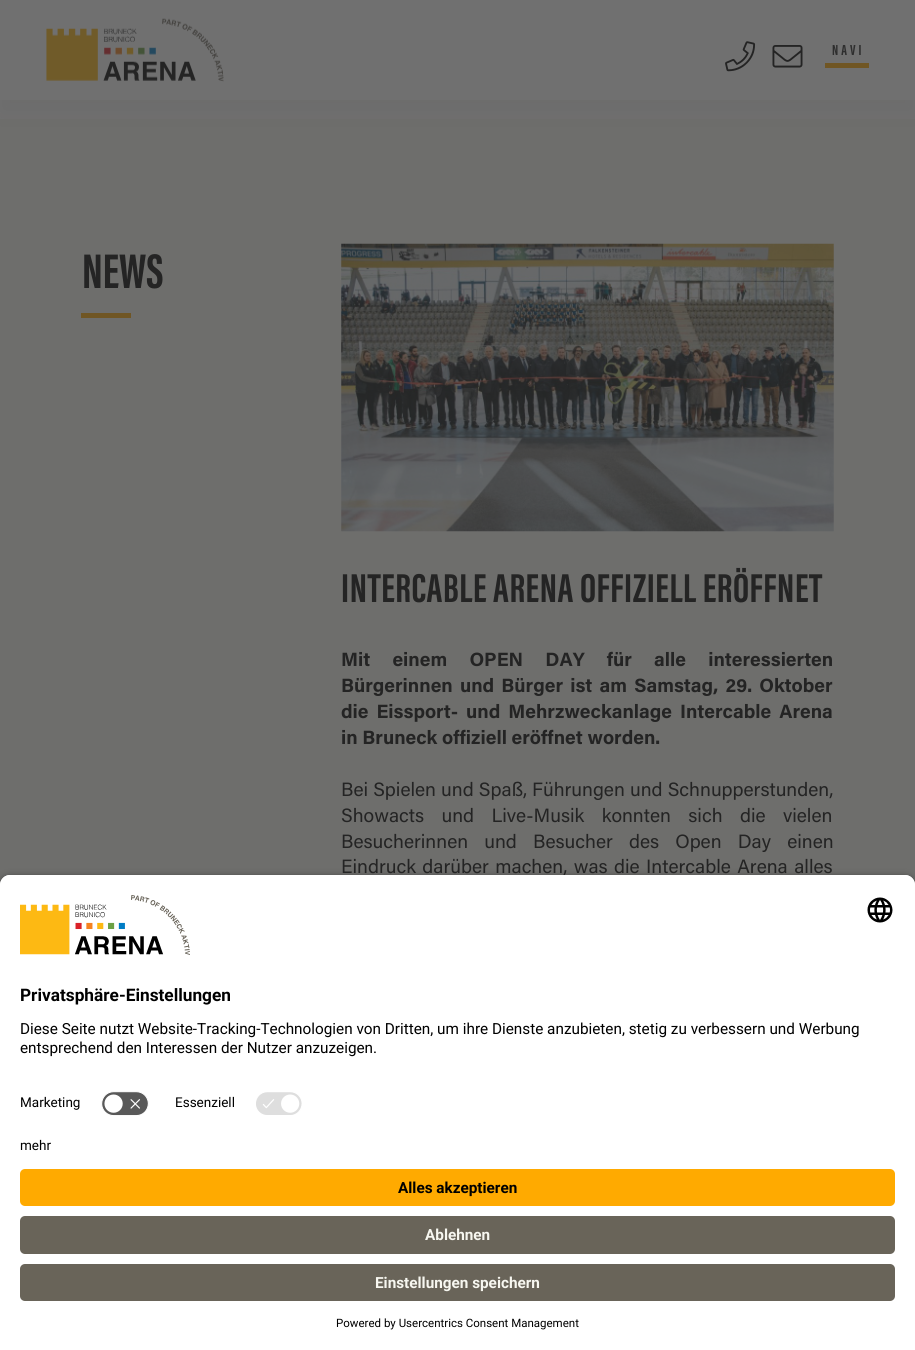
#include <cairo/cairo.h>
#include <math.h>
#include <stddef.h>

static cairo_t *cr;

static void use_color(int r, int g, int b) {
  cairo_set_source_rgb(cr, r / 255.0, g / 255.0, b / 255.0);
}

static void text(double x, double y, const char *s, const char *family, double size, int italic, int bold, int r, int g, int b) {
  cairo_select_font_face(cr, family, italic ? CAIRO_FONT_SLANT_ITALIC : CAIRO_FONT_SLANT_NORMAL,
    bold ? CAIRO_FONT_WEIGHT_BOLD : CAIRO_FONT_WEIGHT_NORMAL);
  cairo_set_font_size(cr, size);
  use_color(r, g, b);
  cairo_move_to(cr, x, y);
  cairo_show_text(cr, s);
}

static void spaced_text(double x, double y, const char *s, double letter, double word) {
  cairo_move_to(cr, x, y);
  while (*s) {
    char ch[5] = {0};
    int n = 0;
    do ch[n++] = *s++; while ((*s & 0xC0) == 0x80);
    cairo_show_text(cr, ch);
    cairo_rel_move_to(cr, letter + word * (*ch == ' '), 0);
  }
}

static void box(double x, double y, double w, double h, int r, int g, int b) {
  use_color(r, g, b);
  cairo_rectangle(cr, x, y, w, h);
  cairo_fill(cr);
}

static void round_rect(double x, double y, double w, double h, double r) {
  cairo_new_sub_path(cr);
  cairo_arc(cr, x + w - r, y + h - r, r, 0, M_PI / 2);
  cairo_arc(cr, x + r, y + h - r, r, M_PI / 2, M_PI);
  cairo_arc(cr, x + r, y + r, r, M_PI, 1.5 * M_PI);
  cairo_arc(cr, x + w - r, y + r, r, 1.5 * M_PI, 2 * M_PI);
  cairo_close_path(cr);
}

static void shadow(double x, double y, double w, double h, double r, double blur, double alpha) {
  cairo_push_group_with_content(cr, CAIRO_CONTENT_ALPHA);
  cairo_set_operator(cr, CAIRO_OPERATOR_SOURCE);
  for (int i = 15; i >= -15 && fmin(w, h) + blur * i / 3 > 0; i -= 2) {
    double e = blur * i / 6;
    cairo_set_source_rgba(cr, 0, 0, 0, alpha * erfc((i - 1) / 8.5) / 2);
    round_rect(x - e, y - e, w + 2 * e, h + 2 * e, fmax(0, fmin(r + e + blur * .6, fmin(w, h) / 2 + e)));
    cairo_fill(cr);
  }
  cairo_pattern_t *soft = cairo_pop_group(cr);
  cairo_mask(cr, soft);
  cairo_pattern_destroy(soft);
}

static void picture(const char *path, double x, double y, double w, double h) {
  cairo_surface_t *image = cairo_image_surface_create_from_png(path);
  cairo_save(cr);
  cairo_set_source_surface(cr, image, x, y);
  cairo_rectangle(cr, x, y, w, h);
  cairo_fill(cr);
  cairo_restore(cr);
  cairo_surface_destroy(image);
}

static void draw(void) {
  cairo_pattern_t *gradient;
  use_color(255, 255, 255);
  cairo_paint(cr);
  gradient = cairo_pattern_create_linear(457, -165, 458, 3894);
  cairo_pattern_add_color_stop_rgba(gradient, 0, 0.439, 0.439, 0.439, 1);
  cairo_pattern_add_color_stop_rgba(gradient, 1, 0.427, 0.427, 0.424, 1);
  cairo_set_source(cr, gradient);
  cairo_pattern_destroy(gradient);
  cairo_rectangle(cr, 0, 100, 915, 19);
  cairo_fill(cr);
  box(0, 119, 915, 766, 110, 110, 108);
  use_color(71, 69, 65);
  shadow(0, 13, 915, 100, 0, 12.5, 0.1);
  box(0, 0, 915, 100, 112, 112, 112);
  picture("img_01.png", 46, 18, 178, 64);
  picture("img_02.png", 725, 41, 31, 31);
  picture("img_03.png", 772, 45, 31, 23);
  box(825, 63, 44, 5, 112, 86, 36);
  box(81, 313, 50, 5, 112, 86, 36);
  picture("img_04.png", 341, 243, 493, 289);
  use_color(0, 0, 0);
  shadow(0, 879, 915, 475, 10, 4.5, 0.8);
  box(0, 1139, 915, 211, 255, 255, 255);
  use_color(255, 170, 0);
  round_rect(20, 1169, 875, 37, 5);
  cairo_fill(cr);
  use_color(105, 100, 89);
  round_rect(20, 1216, 875, 38, 5);
  cairo_fill(cr);
  round_rect(20, 1264, 875, 37, 5);
  cairo_fill(cr);
  cairo_select_font_face(cr, "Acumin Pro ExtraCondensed", CAIRO_FONT_SLANT_NORMAL, CAIRO_FONT_WEIGHT_BOLD);
  cairo_set_font_size(cr, 15);
  use_color(46, 46, 46);
  spaced_text(832, 55, "NAVI", 3, 0);
  text(82, 288, "NEWS", "Acumin Pro ExtraCondensed", 50, 0, 1, 36, 36, 36);
  cairo_set_font_size(cr, 41.5);
  spaced_text(341, 602, "INTERCABLE ARENA OFFIZIELL ERÖFFNET", 0.6, 0);
  cairo_select_font_face(cr, "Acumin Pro", CAIRO_FONT_SLANT_NORMAL, CAIRO_FONT_WEIGHT_BOLD);
  cairo_set_font_size(cr, 19.25);
  spaced_text(341, 666, "Mit einem OPEN DAY für alle interessierten", 0, 17.5);
  spaced_text(341, 692, "Bürgerinnen und Bürger ist am Samstag, 29. Oktober", 0, 2.5);
  spaced_text(341, 718, "die Eissport- und Mehrzweckanlage Intercable Arena", 0, 3.25);
  text(341, 744, "in Bruneck offiziell eröffnet worden.", "Acumin Pro", 19.25, 0, 1, 36, 36, 36);
  cairo_select_font_face(cr, "Acumin Pro", CAIRO_FONT_SLANT_NORMAL, CAIRO_FONT_WEIGHT_NORMAL);
  spaced_text(341, 796, "Bei Spielen und Spaß, Führungen und Schnupperstunden,", 0, 0.25);
  spaced_text(341, 822, "Showacts und Live-Musik konnten sich die vielen", 0, 12.5);
  spaced_text(341, 848, "Besucherinnen und Besucher des Open Day einen", 0, 11.25);
  spaced_text(341, 873, "Eindruck darüber machen, was die Intercable Arena alles", 0, 1.5);
  use_color(255, 255, 255);
  cairo_new_path(cr);
  cairo_move_to(cr, 10, 875);
  cairo_line_to(cr, 905, 875);
  cairo_curve_to(cr, 910.5, 875, 915, 879.5, 915, 885);
  cairo_line_to(cr, 915, 1139);
  cairo_line_to(cr, 0, 1139);
  cairo_line_to(cr, 0, 885);
  cairo_curve_to(cr, 0, 879.5, 4.5, 875, 10, 875);
  cairo_close_path(cr);
  cairo_fill(cr);
  cairo_new_path(cr);
  cairo_move_to(cr, 10, 875);
  cairo_line_to(cr, 905, 875);
  cairo_curve_to(cr, 910.5, 875, 915, 879.5, 915, 885);
  cairo_line_to(cr, 915, 1084);
  cairo_line_to(cr, 0, 1084);
  cairo_line_to(cr, 0, 885);
  cairo_curve_to(cr, 0, 879.5, 4.5, 875, 10, 875);
  cairo_close_path(cr);
  cairo_fill(cr);
  picture("img_05.png", 20, 895, 170, 60);
  picture("img_06.png", 867, 897, 26, 26);
  text(20, 1001, "Privatsphäre-Einstellungen", "Roboto", 17.25, 0, 1, 0, 0, 0);
  text(20, 1034, "Diese Seite nutzt Website-Tracking-Technologien von Dritten, um ihre Dienste anzubieten, stetig zu verbessern und Werbung", "Roboto", 15.3, 0, 0, 0, 0, 0);
  text(20, 1053, "entsprechend den Interessen der Nutzer anzuzeigen.", "Roboto", 15.3, 0, 0, 0, 0, 0);
  text(20, 1107, "Marketing", "Roboto", 13.5, 0, 0, 0, 0, 0);
  picture("img_07.png", 101, 1091, 48, 25);
  text(175, 1107, "Essenziell", "Roboto", 13.5, 0, 0, 0, 0, 0);
  picture("img_08.png", 256, 1092, 46, 23);
  text(20, 1150, "mehr", "Roboto", 13.5, 0, 0, 0, 0, 0);
  text(398, 1193, "Alles akzeptieren", "Roboto", 15.3, 0, 1, 0, 0, 0);
  text(425, 1240, "Ablehnen", "Roboto", 15.3, 0, 1, 247, 247, 240);
  text(375, 1288, "Einstellungen speichern", "Roboto", 15.3, 0, 1, 247, 247, 240);
  text(336, 1327, "Powered by Usercentrics Consent Management", "Roboto", 11.5, 0, 0, 0, 0, 0);
}

int main(void) {
  cairo_surface_t *surface = cairo_image_surface_create(CAIRO_FORMAT_RGB24, 915, 1350);
  cr = cairo_create(surface);
  cairo_font_options_t *options = cairo_font_options_create();
  cairo_font_options_set_hint_metrics(options, CAIRO_HINT_METRICS_OFF);
  cairo_font_options_set_hint_style(options, CAIRO_HINT_STYLE_NONE);
  cairo_set_font_options(cr, options);
  cairo_set_miter_limit(cr, 4);
  draw();
  cairo_surface_write_to_png(surface, "out.png");
  cairo_font_options_destroy(options);
  cairo_destroy(cr);
  cairo_surface_destroy(surface);
  return 0;
}
